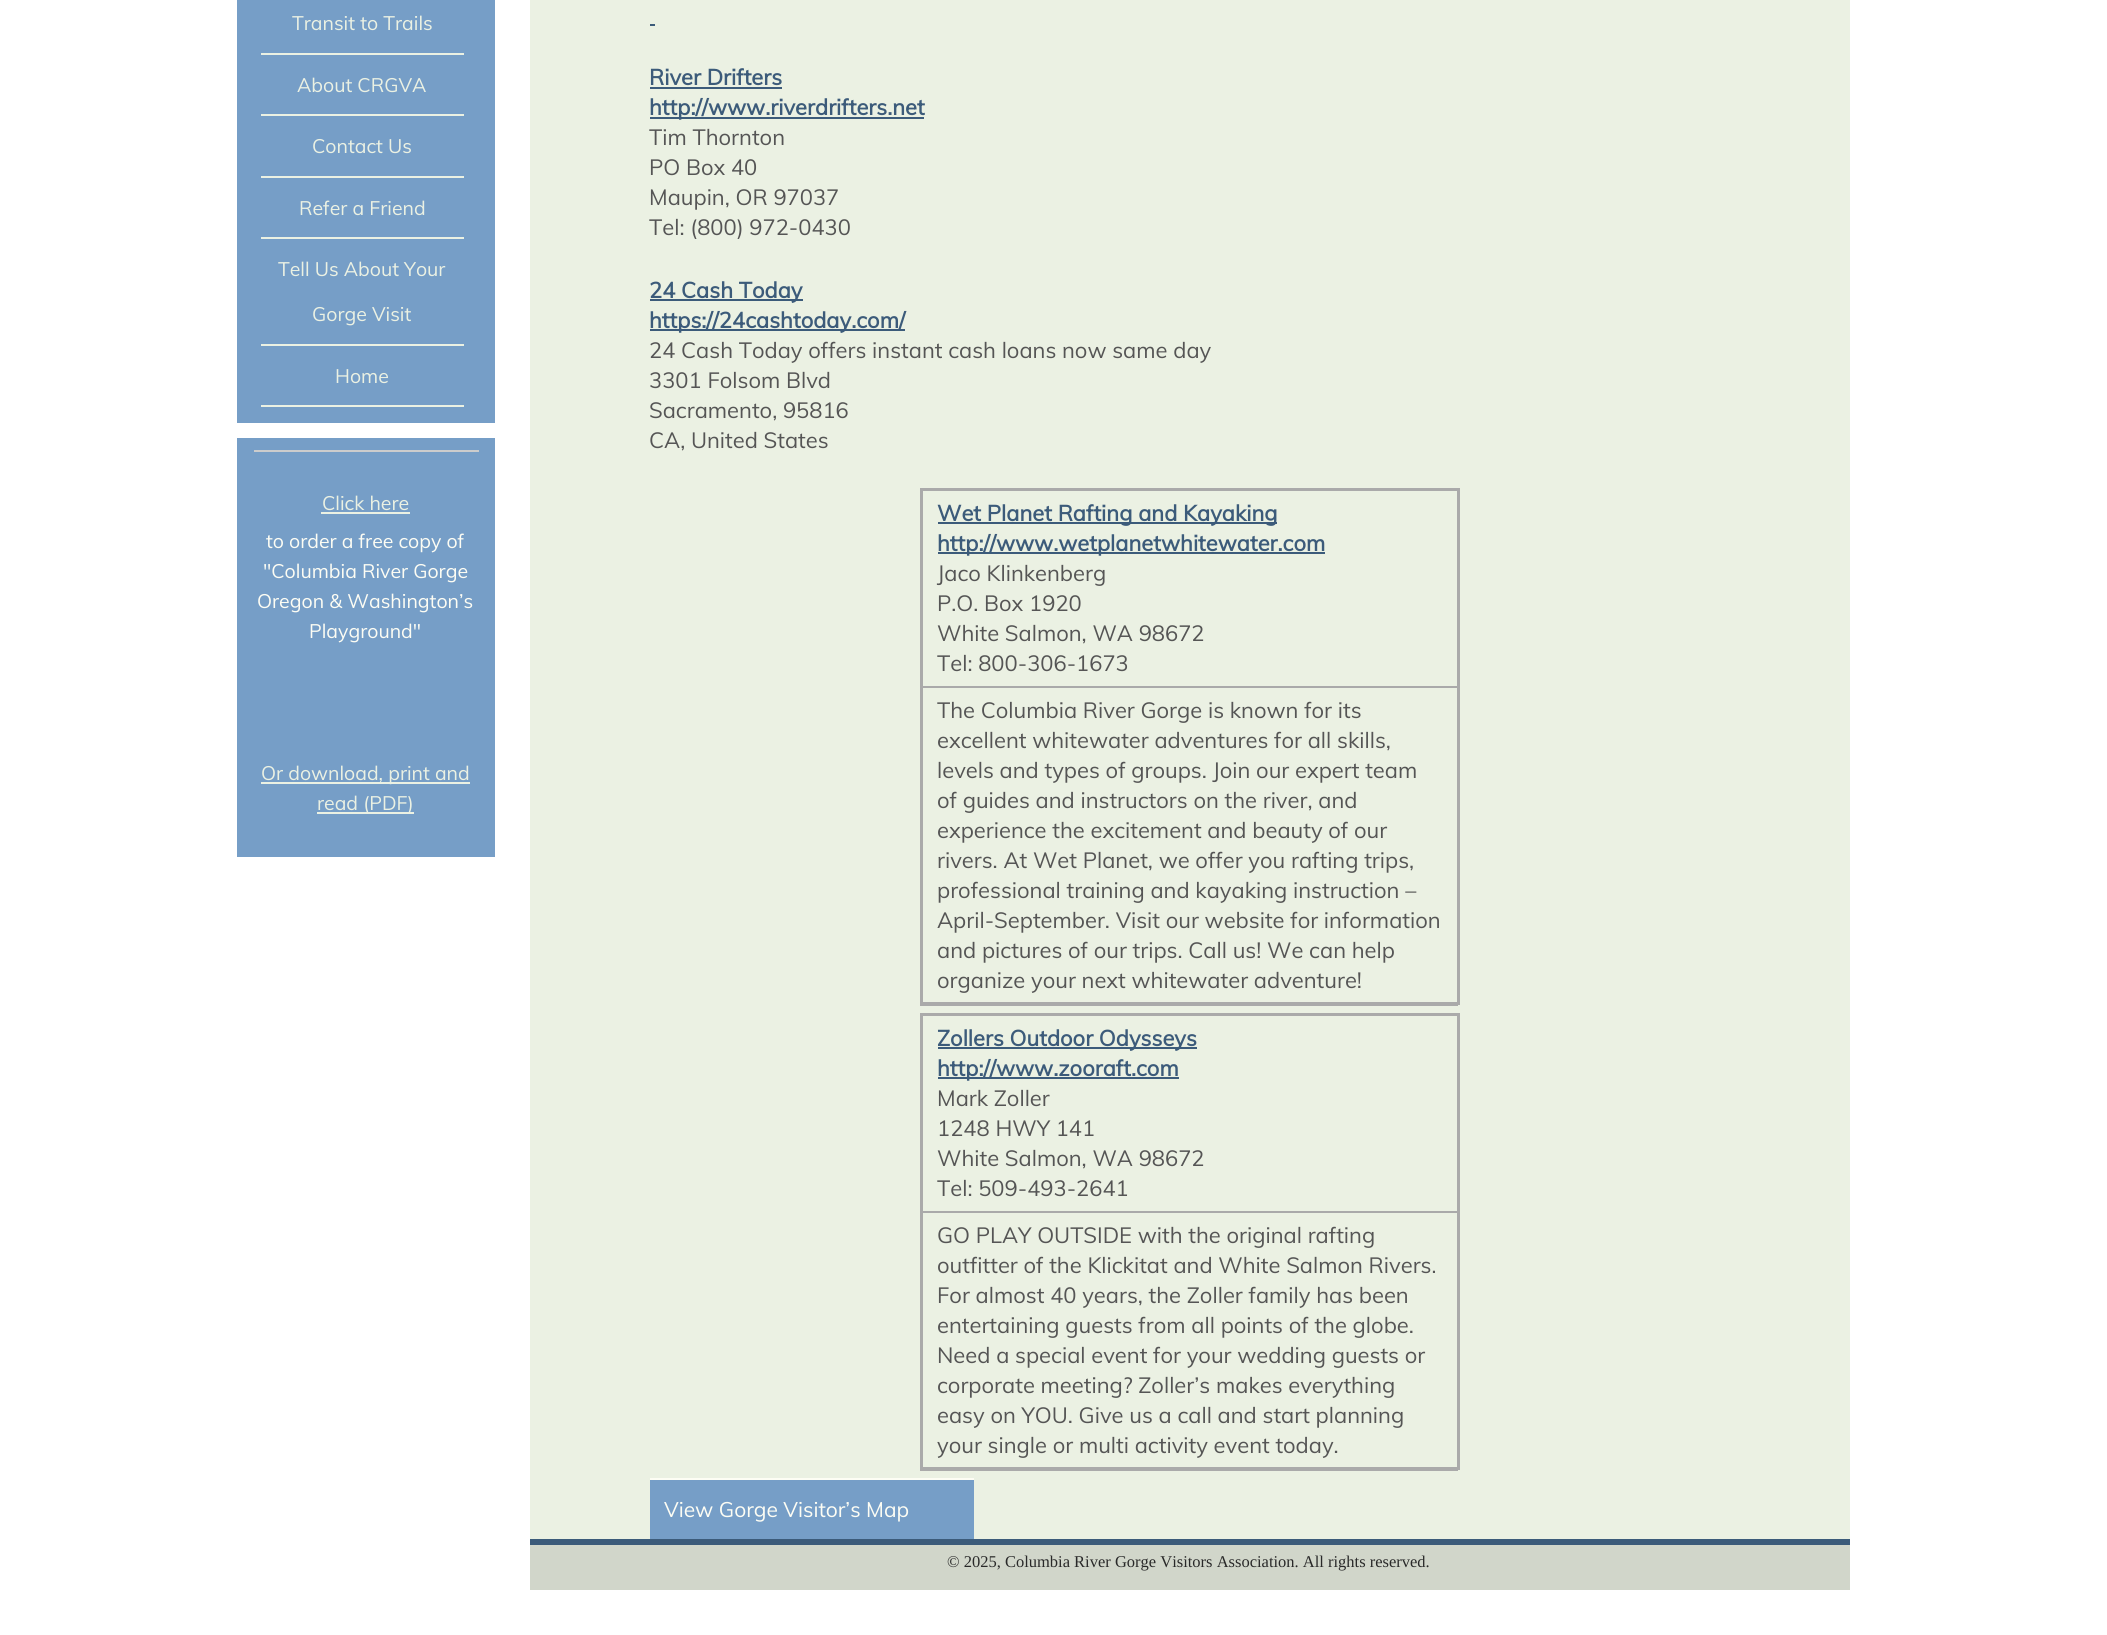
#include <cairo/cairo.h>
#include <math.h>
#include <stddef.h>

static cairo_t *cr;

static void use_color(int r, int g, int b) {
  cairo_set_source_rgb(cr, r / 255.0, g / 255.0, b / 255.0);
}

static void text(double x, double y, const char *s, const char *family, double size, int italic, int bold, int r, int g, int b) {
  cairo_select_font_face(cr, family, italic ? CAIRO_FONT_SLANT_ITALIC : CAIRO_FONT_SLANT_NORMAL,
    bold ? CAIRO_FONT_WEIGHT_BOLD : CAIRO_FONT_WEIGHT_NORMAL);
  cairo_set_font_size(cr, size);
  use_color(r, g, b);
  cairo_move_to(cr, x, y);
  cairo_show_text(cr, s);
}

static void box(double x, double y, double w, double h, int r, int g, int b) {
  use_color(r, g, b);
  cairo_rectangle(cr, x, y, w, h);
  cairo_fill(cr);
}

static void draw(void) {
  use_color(255, 255, 255);
  cairo_paint(cr);
  box(237, 0, 258, 423, 118, 158, 199);
  box(261, 53, 203, 2, 235, 241, 227);
  box(261, 114, 203, 2, 235, 241, 227);
  box(261, 176, 203, 2, 235, 241, 227);
  box(261, 237, 203, 2, 235, 241, 227);
  box(261, 344, 203, 2, 235, 241, 227);
  box(261, 405, 203, 2, 235, 241, 227);
  box(237, 438, 258, 419, 118, 158, 199);
  box(254, 450, 225, 2, 204, 204, 204);
  box(321, 512, 89, 2, 235, 241, 227);
  box(261, 782, 209, 2, 235, 241, 227);
  box(317, 812, 97, 2, 235, 241, 227);
  box(530, 0, 1320, 1539, 235, 241, 227);
  box(650, 24, 5, 2, 60, 91, 122);
  box(650, 87, 132, 2, 60, 91, 122);
  box(650, 117, 274, 2, 60, 91, 122);
  box(650, 299, 153, 2, 60, 91, 122);
  box(650, 329, 255, 2, 60, 91, 122);
  box(920, 488, 540, 3, 170, 170, 170);
  box(920, 686, 538, 2, 170, 170, 170);
  box(1457, 488, 3, 517, 170, 170, 170);
  box(920, 1002, 540, 3, 170, 170, 170);
  box(920, 488, 3, 517, 170, 170, 170);
  box(938, 522, 339, 2, 60, 91, 122);
  box(938, 552, 387, 2, 60, 91, 122);
  box(920, 1005, 538, 1, 170, 170, 170);
  box(920, 1013, 540, 3, 170, 170, 170);
  box(920, 1211, 538, 2, 170, 170, 170);
  box(1457, 1013, 3, 457, 170, 170, 170);
  box(920, 1467, 540, 3, 170, 170, 170);
  box(920, 1013, 3, 457, 170, 170, 170);
  box(938, 1047, 259, 2, 60, 91, 122);
  box(938, 1077, 241, 2, 60, 91, 122);
  box(920, 1470, 538, 1, 170, 170, 170);
  box(650, 1480, 324, 59, 118, 158, 199);
  box(650, 1478, 324, 2, 253, 253, 244);
  box(530, 1545, 1320, 45, 209, 214, 202);
  box(530, 1539, 1320, 6, 60, 91, 122);
  text(292, 30, "Transit to Trails", "Muli", 19.5, 0, 0, 235, 241, 227);
  text(297, 92, "About CRGVA", "Muli", 19.5, 0, 0, 235, 241, 227);
  text(312, 153, "Contact Us", "Muli", 19.5, 0, 0, 235, 241, 227);
  text(299, 215, "Refer a Friend", "Muli", 19.5, 0, 0, 235, 241, 227);
  text(278, 276, "Tell Us About Your", "Muli", 19.5, 0, 0, 235, 241, 227);
  text(312, 321, "Gorge Visit", "Muli", 19.5, 0, 0, 235, 241, 227);
  text(335, 383, "Home", "Muli", 19.5, 0, 0, 235, 241, 227);
  text(322, 510, "Click here", "Muli", 19.5, 0, 0, 235, 241, 227);
  text(266, 548, "to order a free copy of", "Muli", 19.5, 0, 0, 253, 253, 244);
  text(263, 578, "\"Columbia River Gorge", "Muli", 19.5, 0, 0, 253, 253, 244);
  text(257, 608, "Oregon & Washington’s", "Muli", 19.5, 0, 0, 253, 253, 244);
  text(309, 638, "Playground\"", "Muli", 19.5, 0, 0, 253, 253, 244);
  text(261, 780, "Or download, print and", "Muli", 19.5, 0, 0, 235, 241, 227);
  text(317, 810, "read (PDF)", "Muli", 19.5, 0, 0, 235, 241, 227);
  text(649, 85, "River Drifters", "Muli", 21.95, 0, 1, 60, 91, 122);
  text(649, 115, "http://www.riverdrifters.net", "Muli", 21.95, 0, 1, 60, 91, 122);
  text(649, 145, "Tim Thornton", "Muli", 21.95, 0, 0, 85, 85, 85);
  text(649, 175, "PO Box 40", "Muli", 21.95, 0, 0, 85, 85, 85);
  text(649, 205, "Maupin, OR 97037", "Muli", 21.95, 0, 0, 85, 85, 85);
  text(649, 235, "Tel: (800) 972-0430", "Muli", 21.95, 0, 0, 85, 85, 85);
  text(649, 298, "24 Cash Today", "Muli", 21.95, 0, 1, 60, 91, 122);
  text(649, 328, "https://24cashtoday.com/", "Muli", 21.95, 0, 1, 60, 91, 122);
  text(649, 358, "24 Cash Today offers instant cash loans now same day", "Muli", 21.95, 0, 0, 85, 85, 85);
  text(649, 388, "3301 Folsom Blvd", "Muli", 21.95, 0, 0, 85, 85, 85);
  text(649, 418, "Sacramento, 95816", "Muli", 21.95, 0, 0, 85, 85, 85);
  text(649, 448, "CA, United States", "Muli", 21.95, 0, 0, 85, 85, 85);
  text(937, 521, "Wet Planet Rafting and Kayaking", "Muli", 21.95, 0, 1, 60, 91, 122);
  text(937, 551, "http://www.wetplanetwhitewater.com", "Muli", 21.95, 0, 1, 60, 91, 122);
  text(937, 581, "Jaco Klinkenberg", "Muli", 21.95, 0, 0, 85, 85, 85);
  text(937, 611, "P.O. Box 1920", "Muli", 21.95, 0, 0, 85, 85, 85);
  text(937, 641, "White Salmon, WA 98672", "Muli", 21.95, 0, 0, 85, 85, 85);
  text(937, 671, "Tel: 800-306-1673", "Muli", 21.95, 0, 0, 85, 85, 85);
  text(937, 718, "The Columbia River Gorge is known for its", "Muli", 21.95, 0, 0, 85, 85, 85);
  text(937, 748, "excellent whitewater adventures for all skills,", "Muli", 21.95, 0, 0, 85, 85, 85);
  text(937, 778, "levels and types of groups. Join our expert team", "Muli", 21.95, 0, 0, 85, 85, 85);
  text(937, 808, "of guides and instructors on the river, and", "Muli", 21.95, 0, 0, 85, 85, 85);
  text(937, 838, "experience the excitement and beauty of our", "Muli", 21.95, 0, 0, 85, 85, 85);
  text(937, 868, "rivers. At Wet Planet, we offer you rafting trips,", "Muli", 21.95, 0, 0, 85, 85, 85);
  text(937, 898, "professional training and kayaking instruction –", "Muli", 21.95, 0, 0, 85, 85, 85);
  text(937, 928, "April-September. Visit our website for information", "Muli", 21.95, 0, 0, 85, 85, 85);
  text(937, 958, "and pictures of our trips. Call us! We can help", "Muli", 21.95, 0, 0, 85, 85, 85);
  text(937, 988, "organize your next whitewater adventure!", "Muli", 21.95, 0, 0, 85, 85, 85);
  text(937, 1046, "Zollers Outdoor Odysseys", "Muli", 21.95, 0, 1, 60, 91, 122);
  text(937, 1076, "http://www.zooraft.com", "Muli", 21.95, 0, 1, 60, 91, 122);
  text(937, 1106, "Mark Zoller", "Muli", 21.95, 0, 0, 85, 85, 85);
  text(937, 1136, "1248 HWY 141", "Muli", 21.95, 0, 0, 85, 85, 85);
  text(937, 1166, "White Salmon, WA 98672", "Muli", 21.95, 0, 0, 85, 85, 85);
  text(937, 1196, "Tel: 509-493-2641", "Muli", 21.95, 0, 0, 85, 85, 85);
  text(937, 1243, "GO PLAY OUTSIDE with the original rafting", "Muli", 21.95, 0, 0, 85, 85, 85);
  text(937, 1273, "outfitter of the Klickitat and White Salmon Rivers.", "Muli", 21.95, 0, 0, 85, 85, 85);
  text(937, 1303, "For almost 40 years, the Zoller family has been", "Muli", 21.95, 0, 0, 85, 85, 85);
  text(937, 1333, "entertaining guests from all points of the globe.", "Muli", 21.95, 0, 0, 85, 85, 85);
  text(937, 1363, "Need a special event for your wedding guests or", "Muli", 21.95, 0, 0, 85, 85, 85);
  text(937, 1393, "corporate meeting? Zoller’s makes everything", "Muli", 21.95, 0, 0, 85, 85, 85);
  text(937, 1423, "easy on YOU. Give us a call and start planning", "Muli", 21.95, 0, 0, 85, 85, 85);
  text(937, 1453, "your single or multi activity event today.", "Muli", 21.95, 0, 0, 85, 85, 85);
  text(664, 1517, "View Gorge Visitor’s Map", "Muli", 21, 0, 0, 253, 253, 244);
  text(947, 1567, "© 2025, Columbia River Gorge Visitors Association. All rights reserved.", "Liberation Serif", 16.5, 0, 0, 41, 41, 41);
}

int main(void) {
  cairo_surface_t *surface = cairo_image_surface_create(CAIRO_FORMAT_RGB24, 2107, 1635);
  cr = cairo_create(surface);
  cairo_font_options_t *options = cairo_font_options_create();
  cairo_font_options_set_hint_metrics(options, CAIRO_HINT_METRICS_OFF);
  cairo_font_options_set_hint_style(options, CAIRO_HINT_STYLE_NONE);
  cairo_set_font_options(cr, options);
  cairo_set_miter_limit(cr, 4);
  draw();
  cairo_surface_write_to_png(surface, "out.png");
  cairo_font_options_destroy(options);
  cairo_destroy(cr);
  cairo_surface_destroy(surface);
  return 0;
}
